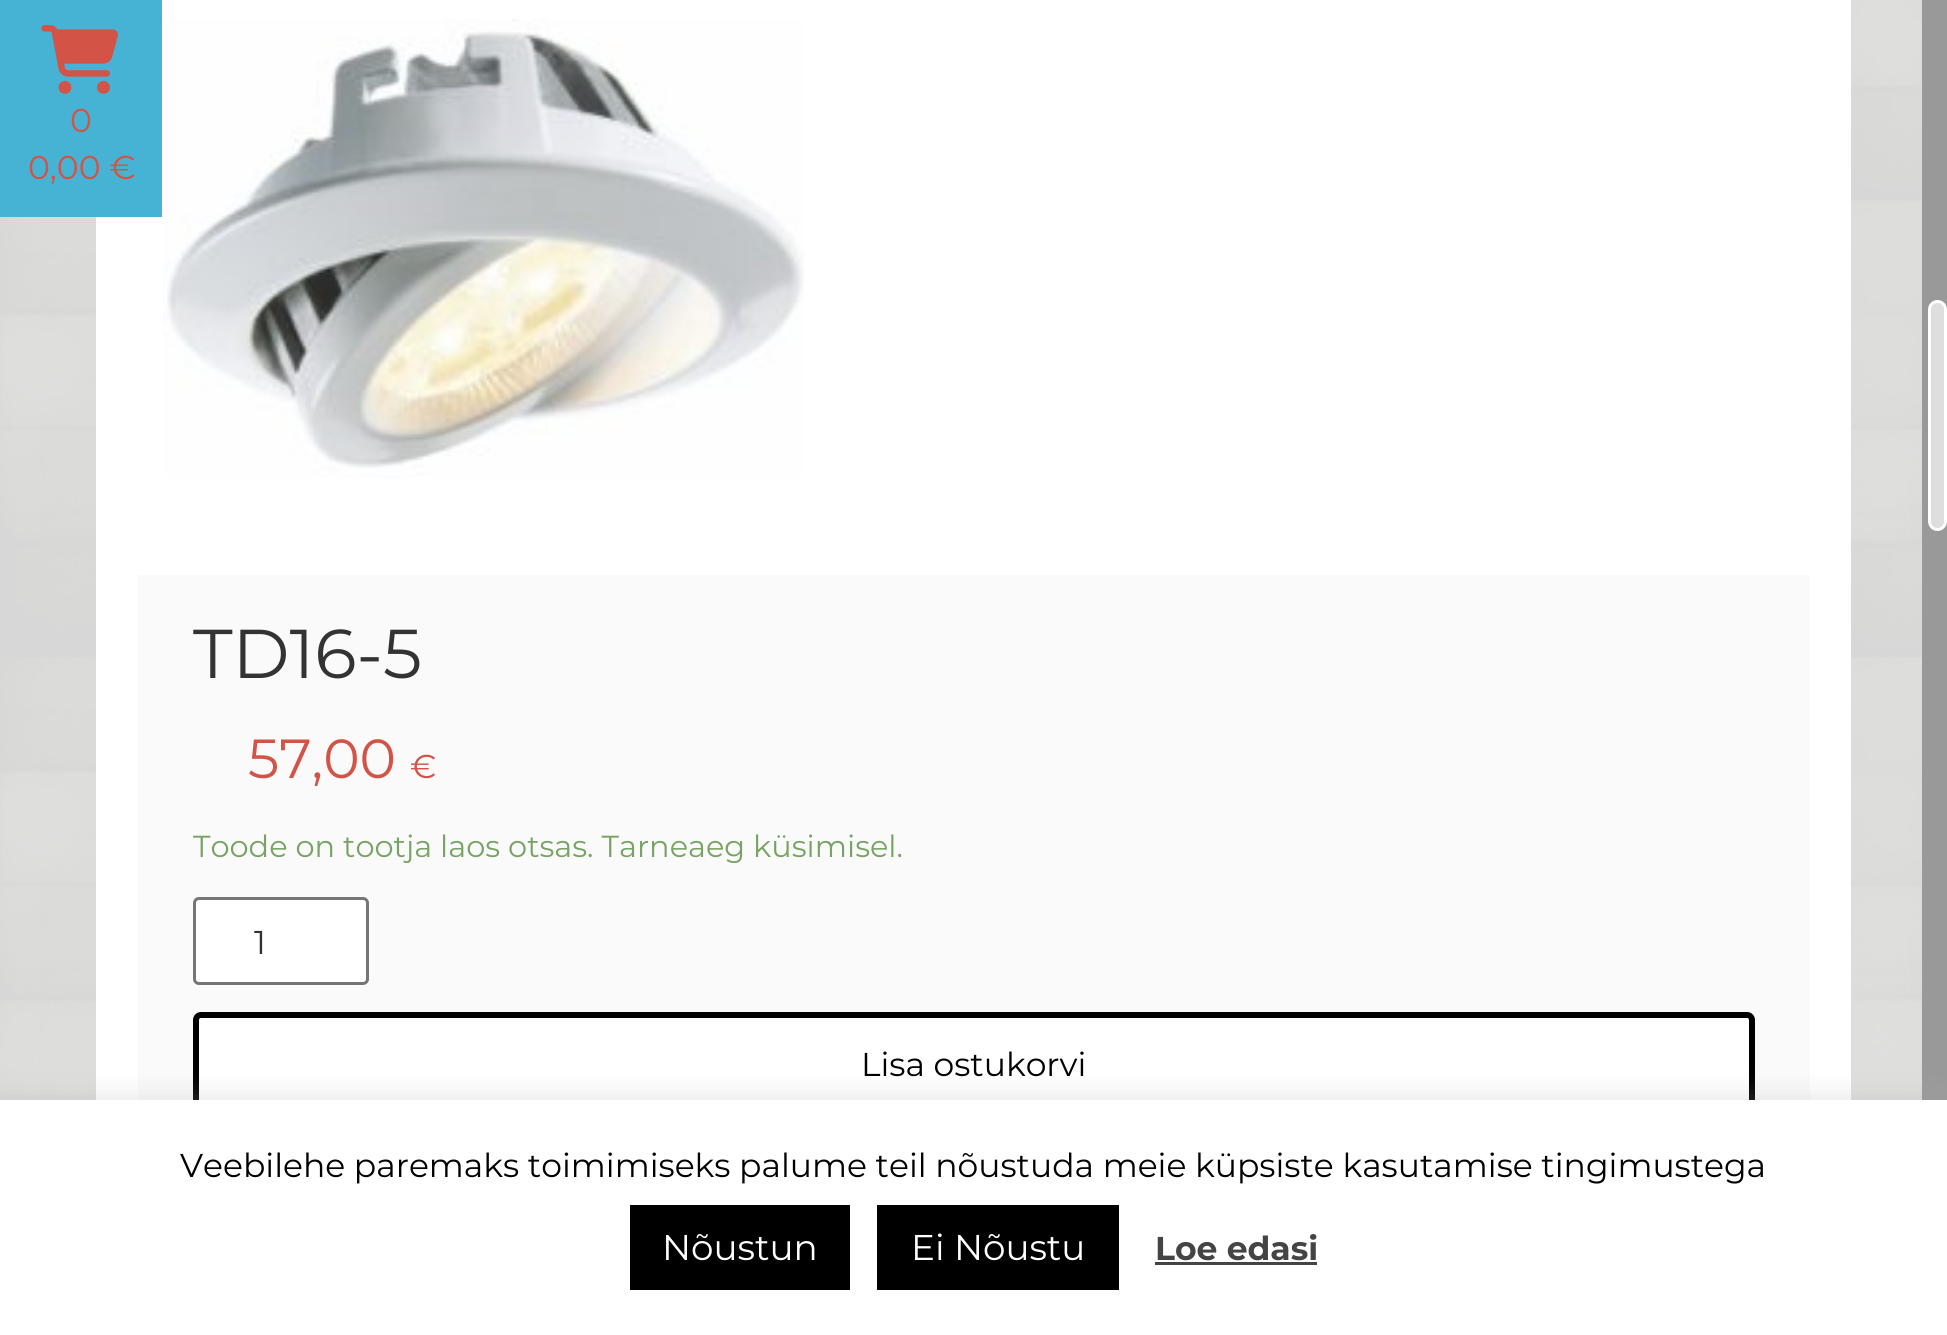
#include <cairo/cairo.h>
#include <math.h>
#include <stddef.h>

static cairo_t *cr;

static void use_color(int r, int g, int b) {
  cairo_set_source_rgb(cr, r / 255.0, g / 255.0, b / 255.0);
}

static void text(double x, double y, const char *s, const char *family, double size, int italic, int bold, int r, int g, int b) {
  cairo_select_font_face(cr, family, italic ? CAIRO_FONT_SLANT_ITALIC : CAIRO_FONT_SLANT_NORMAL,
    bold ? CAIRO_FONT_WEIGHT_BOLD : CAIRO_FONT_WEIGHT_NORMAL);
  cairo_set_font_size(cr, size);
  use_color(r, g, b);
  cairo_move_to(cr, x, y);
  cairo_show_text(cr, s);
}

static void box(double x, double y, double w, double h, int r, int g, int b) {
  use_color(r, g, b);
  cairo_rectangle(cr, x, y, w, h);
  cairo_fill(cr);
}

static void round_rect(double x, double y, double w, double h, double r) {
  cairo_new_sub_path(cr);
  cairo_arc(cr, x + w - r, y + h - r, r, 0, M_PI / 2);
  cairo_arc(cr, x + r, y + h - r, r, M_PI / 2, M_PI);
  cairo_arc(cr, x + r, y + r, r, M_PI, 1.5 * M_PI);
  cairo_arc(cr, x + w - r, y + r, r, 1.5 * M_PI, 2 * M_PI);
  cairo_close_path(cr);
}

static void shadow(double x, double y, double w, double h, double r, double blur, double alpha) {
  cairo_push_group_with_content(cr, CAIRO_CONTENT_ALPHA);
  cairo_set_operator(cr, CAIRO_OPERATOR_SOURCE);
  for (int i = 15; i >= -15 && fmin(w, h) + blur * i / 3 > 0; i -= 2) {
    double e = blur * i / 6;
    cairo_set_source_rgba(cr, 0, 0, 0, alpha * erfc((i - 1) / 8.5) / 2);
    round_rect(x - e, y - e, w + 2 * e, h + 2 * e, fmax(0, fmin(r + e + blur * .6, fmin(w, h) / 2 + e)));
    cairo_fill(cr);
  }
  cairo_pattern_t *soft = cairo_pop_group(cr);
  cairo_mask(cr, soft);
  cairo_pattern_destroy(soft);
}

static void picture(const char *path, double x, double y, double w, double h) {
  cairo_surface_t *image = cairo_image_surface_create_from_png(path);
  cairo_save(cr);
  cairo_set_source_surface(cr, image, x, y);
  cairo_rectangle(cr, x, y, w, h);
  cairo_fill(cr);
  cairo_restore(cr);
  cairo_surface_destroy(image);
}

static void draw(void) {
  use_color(222, 222, 222);
  cairo_paint(cr);
  picture("img_01.png", 0, 0, 1922, 1100);
  box(96, 0, 1755, 1100, 255, 255, 255);
  box(0, 0, 162, 217, 70, 179, 212);
  picture("img_02.png", 41, 25, 77, 69);
  box(1922, 0, 25, 1100, 153, 153, 153);
  use_color(222, 222, 222);
  round_rect(1929.5, 301.5, 16, 228, 8);
  cairo_fill_preserve(cr);
  use_color(255, 255, 255);
  cairo_set_line_width(cr, 3);
  cairo_stroke(cr);
  picture("img_03.png", 163, 19, 641, 459);
  box(138, 575, 1672, 525, 250, 250, 250);
  use_color(255, 255, 255);
  round_rect(194.5, 898.5, 173, 85, 4.5);
  cairo_fill_preserve(cr);
  use_color(118, 118, 118);
  cairo_stroke(cr);
  use_color(255, 255, 255);
  round_rect(196, 1015, 1556, 99, 5);
  cairo_fill_preserve(cr);
  use_color(0, 0, 0);
  cairo_set_line_width(cr, 6);
  cairo_stroke(cr);
  use_color(172, 171, 171);
  shadow(0, 1097, 1947, 237, 0, 14, 0.3);
  box(0, 1100, 1947, 235, 255, 255, 255);
  box(630, 1205, 220, 85, 0, 0, 0);
  box(877, 1205, 242, 85, 0, 0, 0);
  box(1155, 1262, 162, 3, 68, 68, 68);
  text(70, 132, "0", "Montserrat", 33, 0, 0, 211, 83, 70);
  text(28, 179, "0,00 €", "Montserrat", 33, 0, 0, 211, 83, 70);
  text(193, 678, "TD16-5", "Montserrat", 69, 0, 0, 51, 51, 51);
  text(248, 778, "57,00", "Montserrat", 55, 0, 0, 211, 83, 70);
  text(410, 778, "€", "Montserrat", 33, 0, 0, 211, 83, 70);
  text(193, 857, "Toode on tootja laos otsas. Tarneaeg küsimisel.", "Montserrat", 30.4, 0, 0, 119, 164, 100);
  text(254, 954, "1", "Montserrat", 33, 0, 0, 51, 51, 51);
  text(861, 1076, "Lisa ostukorvi", "Montserrat", 33, 0, 0, 0, 0, 0);
  text(180, 1177, "Veebilehe paremaks toimimiseks palume teil nõustuda meie küpsiste kasutamise tingimustega", "Montserrat", 33, 0, 0, 0, 0, 0);
  text(662, 1260, "Nõustun", "Montserrat", 35.75, 0, 0, 255, 255, 255);
  text(911, 1260, "Ei Nõustu", "Montserrat", 35.75, 0, 0, 255, 255, 255);
  text(1155, 1260, "Loe edasi", "Montserrat", 33, 0, 1, 68, 68, 68);
}

int main(void) {
  cairo_surface_t *surface = cairo_image_surface_create(CAIRO_FORMAT_RGB24, 1947, 1335);
  cr = cairo_create(surface);
  cairo_font_options_t *options = cairo_font_options_create();
  cairo_font_options_set_hint_metrics(options, CAIRO_HINT_METRICS_OFF);
  cairo_font_options_set_hint_style(options, CAIRO_HINT_STYLE_NONE);
  cairo_set_font_options(cr, options);
  cairo_set_miter_limit(cr, 4);
  draw();
  cairo_surface_write_to_png(surface, "out.png");
  cairo_font_options_destroy(options);
  cairo_destroy(cr);
  cairo_surface_destroy(surface);
  return 0;
}
